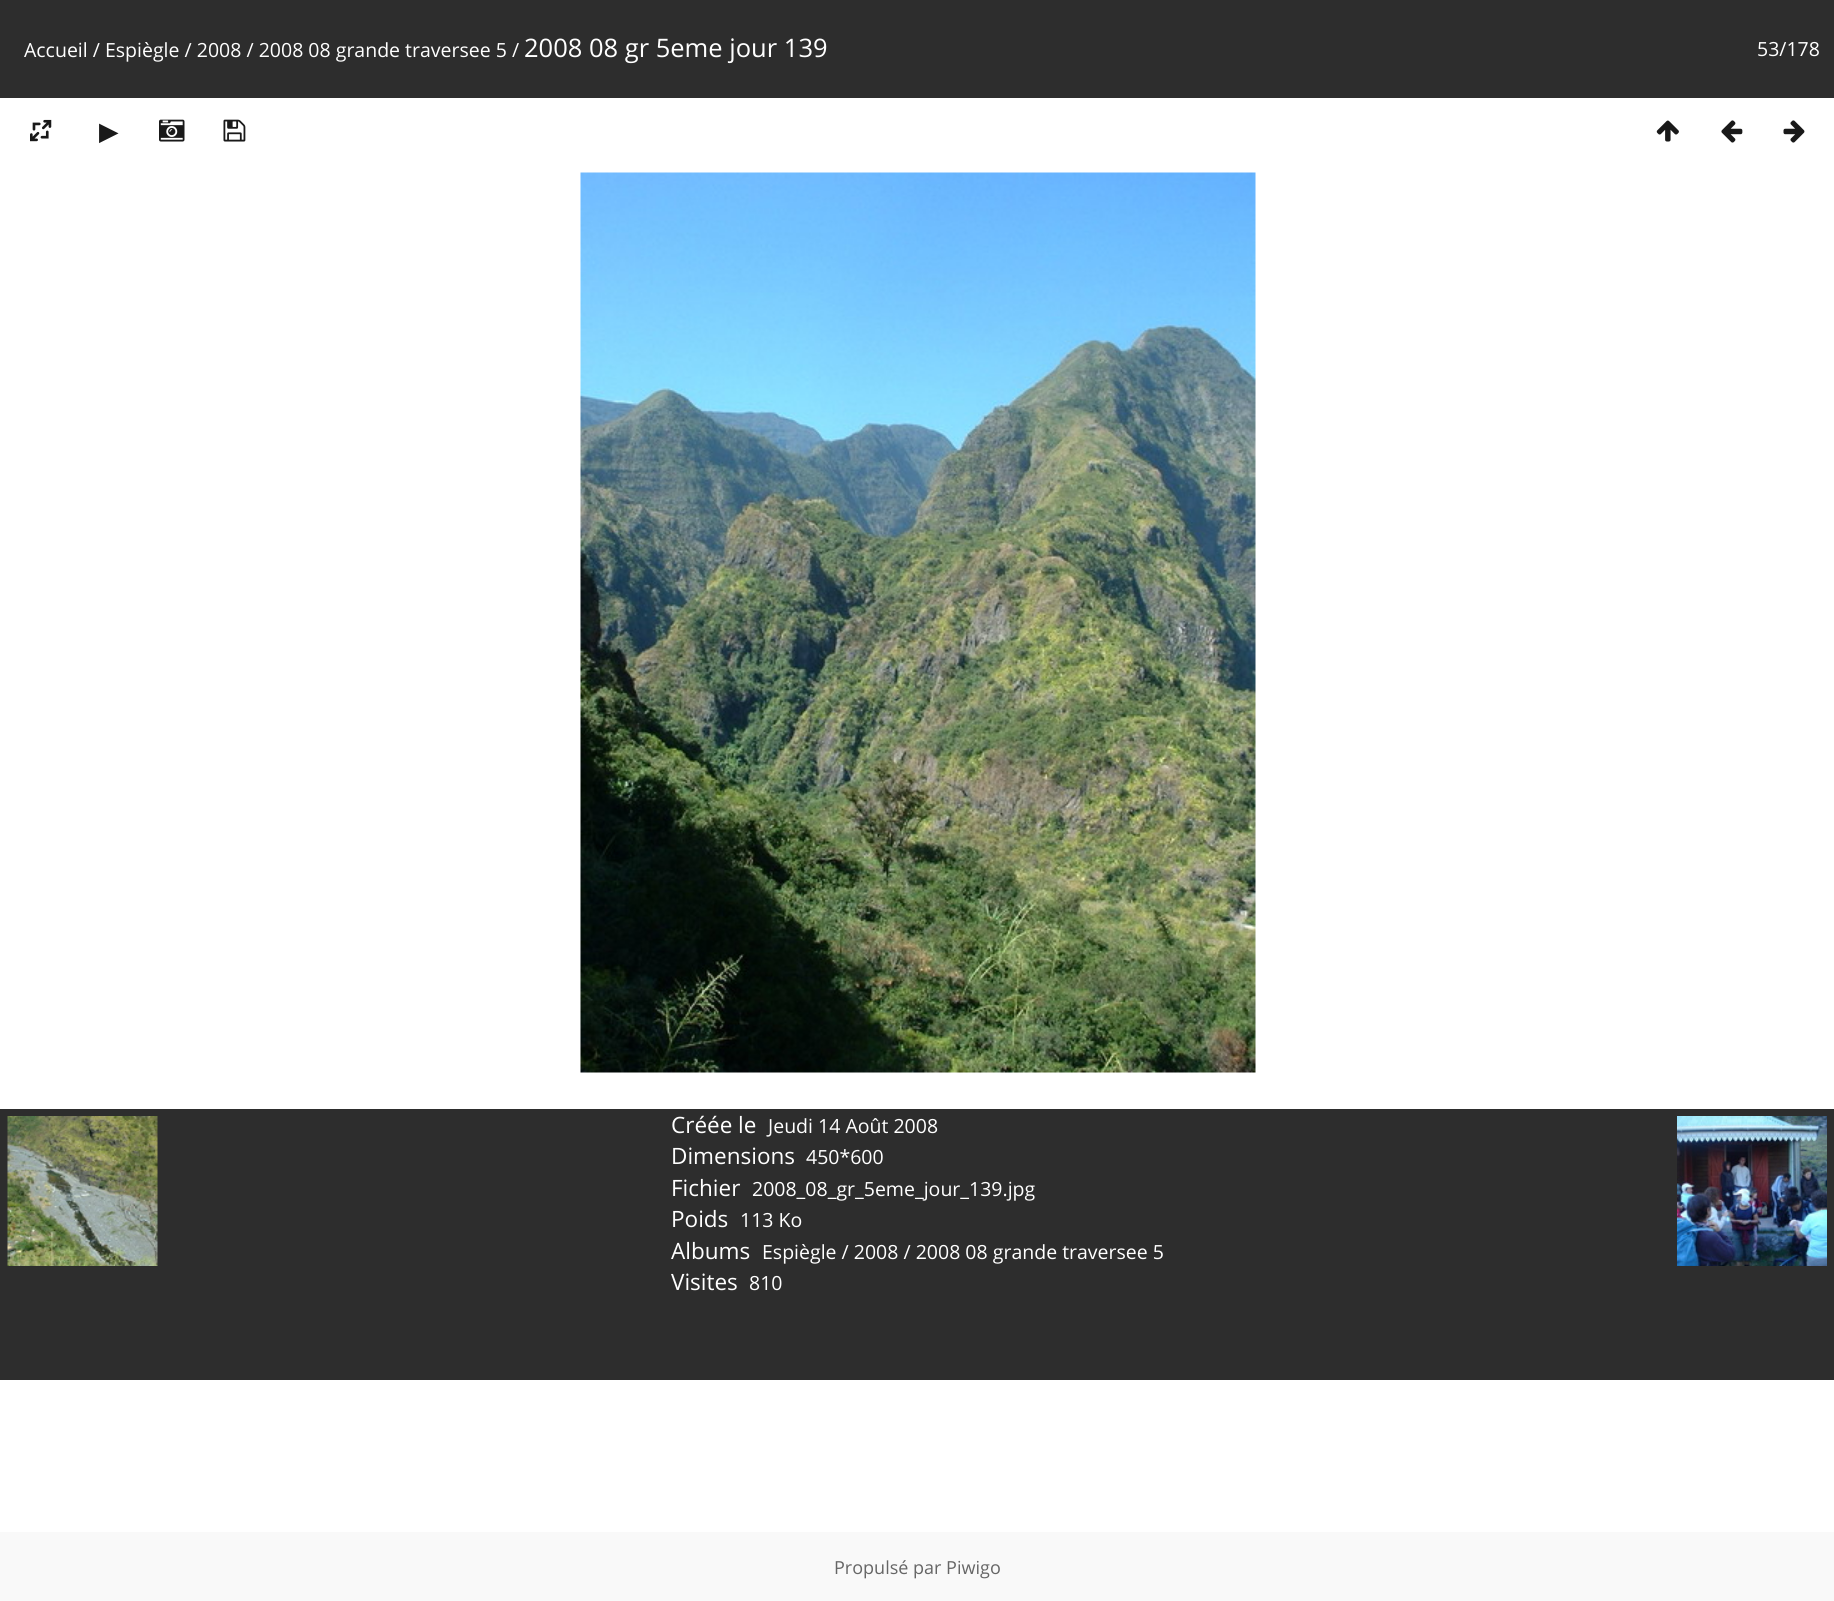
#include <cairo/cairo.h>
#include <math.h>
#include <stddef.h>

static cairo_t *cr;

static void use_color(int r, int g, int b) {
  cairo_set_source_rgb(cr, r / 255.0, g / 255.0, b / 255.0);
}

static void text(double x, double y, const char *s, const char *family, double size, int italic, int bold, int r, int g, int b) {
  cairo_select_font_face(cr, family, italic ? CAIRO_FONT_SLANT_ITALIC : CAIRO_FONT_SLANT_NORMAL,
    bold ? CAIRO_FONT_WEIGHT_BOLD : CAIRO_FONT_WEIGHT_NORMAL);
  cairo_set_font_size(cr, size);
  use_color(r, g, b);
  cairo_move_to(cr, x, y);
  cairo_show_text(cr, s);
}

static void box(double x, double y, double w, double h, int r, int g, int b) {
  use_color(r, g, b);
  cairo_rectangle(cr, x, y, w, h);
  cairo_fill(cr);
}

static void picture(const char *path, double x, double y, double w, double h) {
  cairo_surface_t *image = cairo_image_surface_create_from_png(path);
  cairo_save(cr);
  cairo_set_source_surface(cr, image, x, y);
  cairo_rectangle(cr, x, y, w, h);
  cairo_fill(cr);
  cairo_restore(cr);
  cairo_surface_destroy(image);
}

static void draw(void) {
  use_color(255, 255, 255);
  cairo_paint(cr);
  box(0, 0, 1834, 98, 45, 45, 45);
  picture("img_01.png", 30, 119, 22, 23);
  picture("img_02.png", 159, 119, 26, 23);
  picture("img_03.png", 223, 119, 23, 23);
  picture("img_04.png", 1656, 120, 23, 22);
  picture("img_05.png", 1721, 120, 22, 23);
  picture("img_06.png", 1783, 120, 22, 23);
  picture("img_07.png", 580, 172, 676, 901);
  box(0, 1109, 1834, 271, 45, 45, 45);
  picture("img_08.png", 7, 1116, 151, 150);
  picture("img_09.png", 1677, 1116, 150, 150);
  box(0, 1532, 1834, 69, 249, 249, 249);
  text(24, 57, "Accueil / Espiègle / 2008 / 2008 08 grande traversee 5 /", "Open Sans", 19.5, 0, 0, 255, 255, 255);
  text(524, 57, "2008 08 gr 5eme jour 139", "Open Sans", 25.5, 0, 0, 255, 255, 255);
  text(1757, 56, "53/178", "Open Sans", 19.5, 0, 0, 255, 255, 255);
  text(99, 140, "▶", "DejaVu Sans", 25.5, 0, 0, 26, 26, 26);
  text(671, 1133, "Créée le", "Open Sans", 22.5, 0, 0, 255, 255, 255);
  text(768, 1133, "Jeudi 14 Août 2008", "Open Sans", 19.5, 0, 0, 255, 255, 255);
  text(671, 1164, "Dimensions", "Open Sans", 22.5, 0, 0, 255, 255, 255);
  text(806, 1164, "450*600", "Open Sans", 19.5, 0, 0, 255, 255, 255);
  text(671, 1196, "Fichier", "Open Sans", 22.5, 0, 0, 255, 255, 255);
  text(752, 1196, "2008_08_gr_5eme_jour_139.jpg", "Open Sans", 19.5, 0, 0, 255, 255, 255);
  text(671, 1227, "Poids", "Open Sans", 22.5, 0, 0, 255, 255, 255);
  text(740, 1227, "113 Ko", "Open Sans", 19.5, 0, 0, 255, 255, 255);
  text(671, 1259, "Albums", "Open Sans", 22.5, 0, 0, 255, 255, 255);
  text(762, 1259, "Espiègle / 2008 / 2008 08 grande traversee 5", "Open Sans", 19.5, 0, 0, 255, 255, 255);
  text(671, 1290, "Visites", "Open Sans", 22.5, 0, 0, 255, 255, 255);
  text(749, 1290, "810", "Open Sans", 19.5, 0, 0, 255, 255, 255);
  text(834, 1574, "Propulsé par Piwigo", "Open Sans", 18, 0, 0, 102, 102, 102);
}

int main(void) {
  cairo_surface_t *surface = cairo_image_surface_create(CAIRO_FORMAT_RGB24, 1834, 1601);
  cr = cairo_create(surface);
  cairo_font_options_t *options = cairo_font_options_create();
  cairo_font_options_set_hint_metrics(options, CAIRO_HINT_METRICS_OFF);
  cairo_font_options_set_hint_style(options, CAIRO_HINT_STYLE_NONE);
  cairo_set_font_options(cr, options);
  cairo_set_miter_limit(cr, 4);
  draw();
  cairo_surface_write_to_png(surface, "out.png");
  cairo_font_options_destroy(options);
  cairo_destroy(cr);
  cairo_surface_destroy(surface);
  return 0;
}
